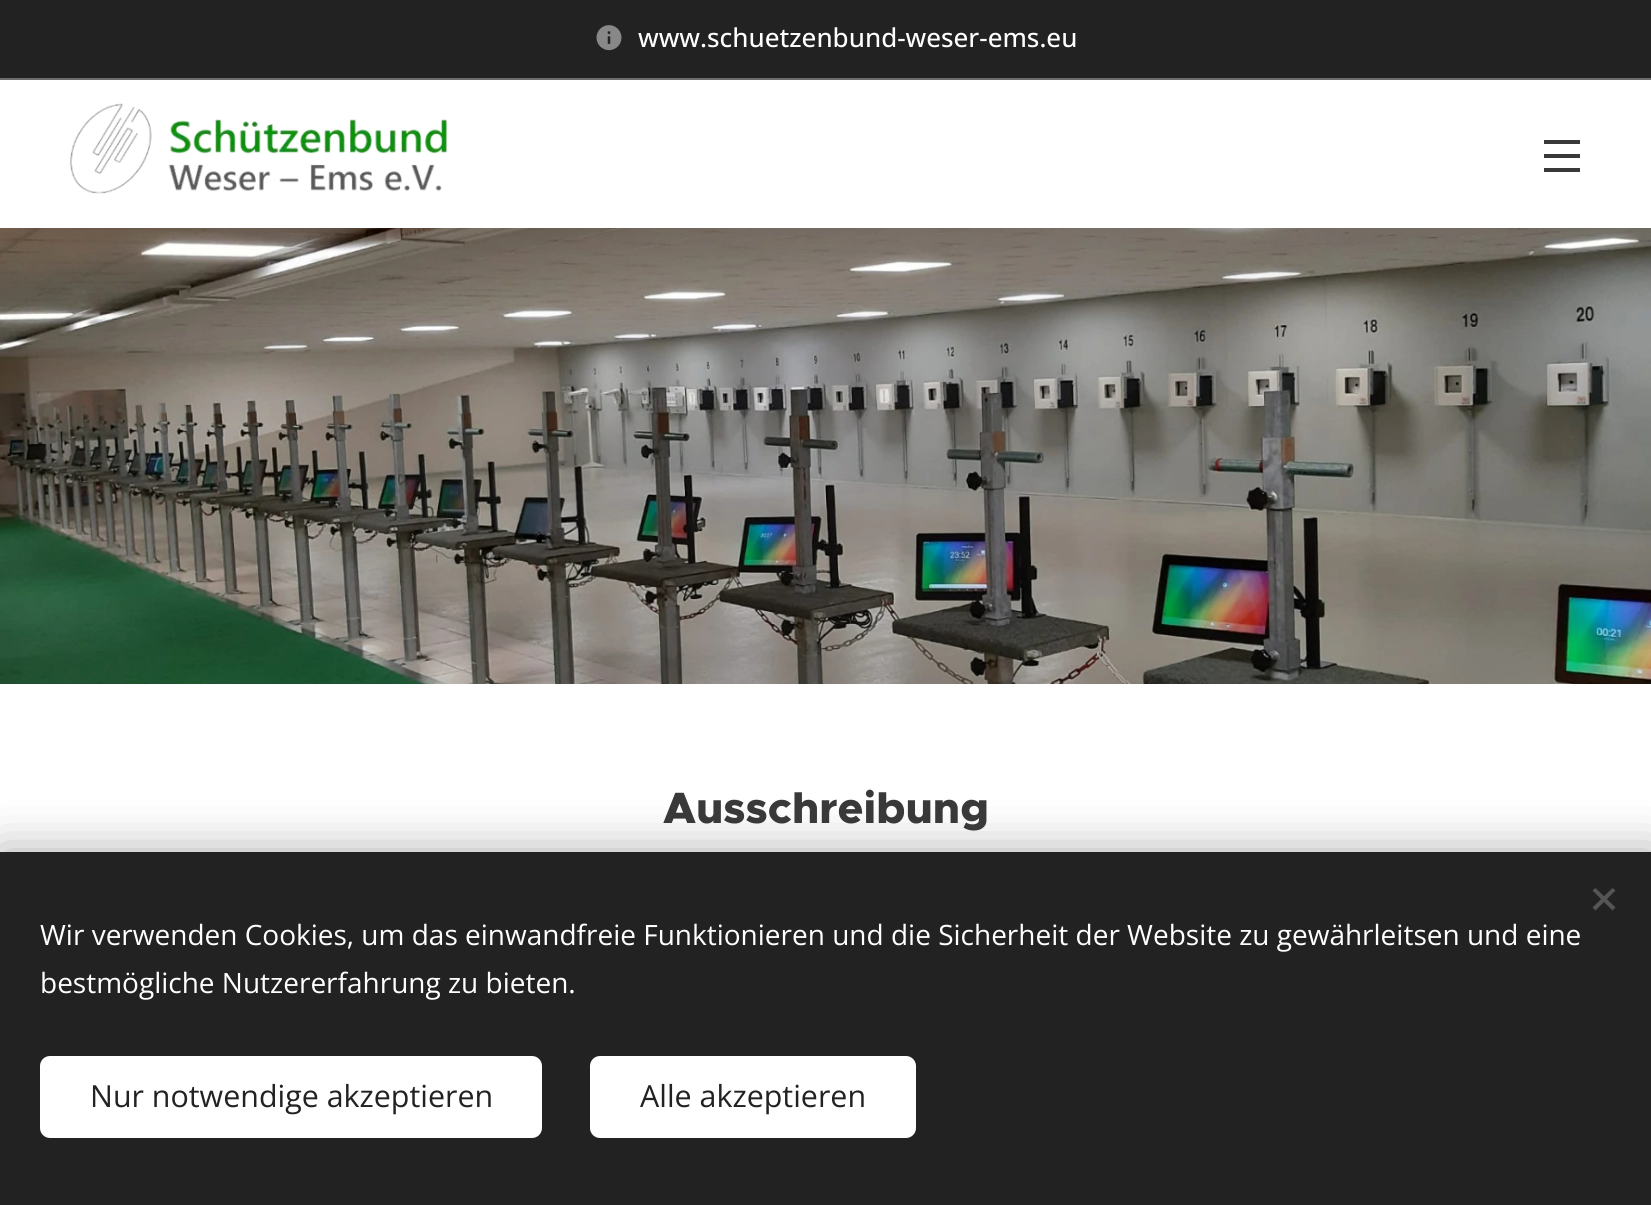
#include <cairo/cairo.h>
#include <math.h>
#include <stddef.h>

static cairo_t *cr;

static void use_color(int r, int g, int b) {
  cairo_set_source_rgb(cr, r / 255.0, g / 255.0, b / 255.0);
}

static void text(double x, double y, const char *s, const char *family, double size, int italic, int bold, int r, int g, int b) {
  cairo_select_font_face(cr, family, italic ? CAIRO_FONT_SLANT_ITALIC : CAIRO_FONT_SLANT_NORMAL,
    bold ? CAIRO_FONT_WEIGHT_BOLD : CAIRO_FONT_WEIGHT_NORMAL);
  cairo_set_font_size(cr, size);
  use_color(r, g, b);
  cairo_move_to(cr, x, y);
  cairo_show_text(cr, s);
}

static void box(double x, double y, double w, double h, int r, int g, int b) {
  use_color(r, g, b);
  cairo_rectangle(cr, x, y, w, h);
  cairo_fill(cr);
}

static void round_rect(double x, double y, double w, double h, double r) {
  cairo_new_sub_path(cr);
  cairo_arc(cr, x + w - r, y + h - r, r, 0, M_PI / 2);
  cairo_arc(cr, x + r, y + h - r, r, M_PI / 2, M_PI);
  cairo_arc(cr, x + r, y + r, r, M_PI, 1.5 * M_PI);
  cairo_arc(cr, x + w - r, y + r, r, 1.5 * M_PI, 2 * M_PI);
  cairo_close_path(cr);
}

static void shadow(double x, double y, double w, double h, double r, double blur, double alpha) {
  cairo_push_group_with_content(cr, CAIRO_CONTENT_ALPHA);
  cairo_set_operator(cr, CAIRO_OPERATOR_SOURCE);
  for (int i = 15; i >= -15 && fmin(w, h) + blur * i / 3 > 0; i -= 2) {
    double e = blur * i / 6;
    cairo_set_source_rgba(cr, 0, 0, 0, alpha * erfc((i - 1) / 8.5) / 2);
    round_rect(x - e, y - e, w + 2 * e, h + 2 * e, fmax(0, fmin(r + e + blur * .6, fmin(w, h) / 2 + e)));
    cairo_fill(cr);
  }
  cairo_pattern_t *soft = cairo_pop_group(cr);
  cairo_mask(cr, soft);
  cairo_pattern_destroy(soft);
}

static void picture(const char *path, double x, double y, double w, double h) {
  cairo_surface_t *image = cairo_image_surface_create_from_png(path);
  cairo_save(cr);
  cairo_set_source_surface(cr, image, x, y);
  cairo_rectangle(cr, x, y, w, h);
  cairo_fill(cr);
  cairo_restore(cr);
  cairo_surface_destroy(image);
}

static void draw(void) {
  use_color(255, 255, 255);
  cairo_paint(cr);
  box(0, 0, 1651, 78, 34, 34, 34);
  picture("img_01.png", 596, 25, 26, 26);
  box(0, 78, 1651, 2, 110, 110, 110);
  picture("img_02.png", 70, 103, 378, 91);
  box(1544, 154, 36, 4, 57, 57, 57);
  box(1544, 140, 36, 4, 57, 57, 57);
  box(1544, 168, 36, 4, 57, 57, 57);
  picture("img_03.png", 0, 228, 1651, 456);
  use_color(0, 0, 0);
  shadow(0, 852, 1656, 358, 0, 25, 0.33);
  box(0, 852, 1651, 353, 34, 34, 34);
  use_color(85, 85, 85);
  cairo_new_path(cr);
  cairo_move_to(cr, 1592.5, 907.5);
  cairo_line_to(cr, 1612.5, 888);
  cairo_line_to(cr, 1615.5, 890.5);
  cairo_line_to(cr, 1595.5, 910.5);
  cairo_close_path(cr);
  cairo_fill(cr);
  cairo_new_path(cr);
  cairo_move_to(cr, 1595.5, 888);
  cairo_line_to(cr, 1615.5, 907.5);
  cairo_line_to(cr, 1612.5, 910.5);
  cairo_line_to(cr, 1592.5, 890.5);
  cairo_close_path(cr);
  cairo_fill(cr);
  use_color(255, 255, 255);
  round_rect(40, 1056, 502, 82, 10);
  cairo_fill(cr);
  round_rect(590, 1056, 326, 82, 10);
  cairo_fill(cr);
  text(638, 47, "www.schuetzenbund-weser-ems.eu", "Open Sans Medium", 26, 0, 0, 255, 255, 255);
  text(663, 823, "Ausschreibung", "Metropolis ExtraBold", 44, 0, 0, 57, 57, 57);
  text(40, 945, "Wir verwenden Cookies, um das einwandfreie Funktionieren und die Sicherheit der Website zu gewährleitsen und eine", "Open Sans", 28, 0, 0, 255, 255, 255);
  text(40, 993, "bestmögliche Nutzererfahrung zu bieten.", "Open Sans", 28, 0, 0, 255, 255, 255);
  text(90, 1107, "Nur notwendige akzeptieren", "Open Sans", 30.4, 0, 0, 34, 34, 34);
  text(640, 1107, "Alle akzeptieren", "Open Sans", 30.4, 0, 0, 34, 34, 34);
}

int main(void) {
  cairo_surface_t *surface = cairo_image_surface_create(CAIRO_FORMAT_RGB24, 1651, 1205);
  cr = cairo_create(surface);
  cairo_font_options_t *options = cairo_font_options_create();
  cairo_font_options_set_hint_metrics(options, CAIRO_HINT_METRICS_OFF);
  cairo_font_options_set_hint_style(options, CAIRO_HINT_STYLE_NONE);
  cairo_set_font_options(cr, options);
  cairo_set_miter_limit(cr, 4);
  draw();
  cairo_surface_write_to_png(surface, "out.png");
  cairo_font_options_destroy(options);
  cairo_destroy(cr);
  cairo_surface_destroy(surface);
  return 0;
}
